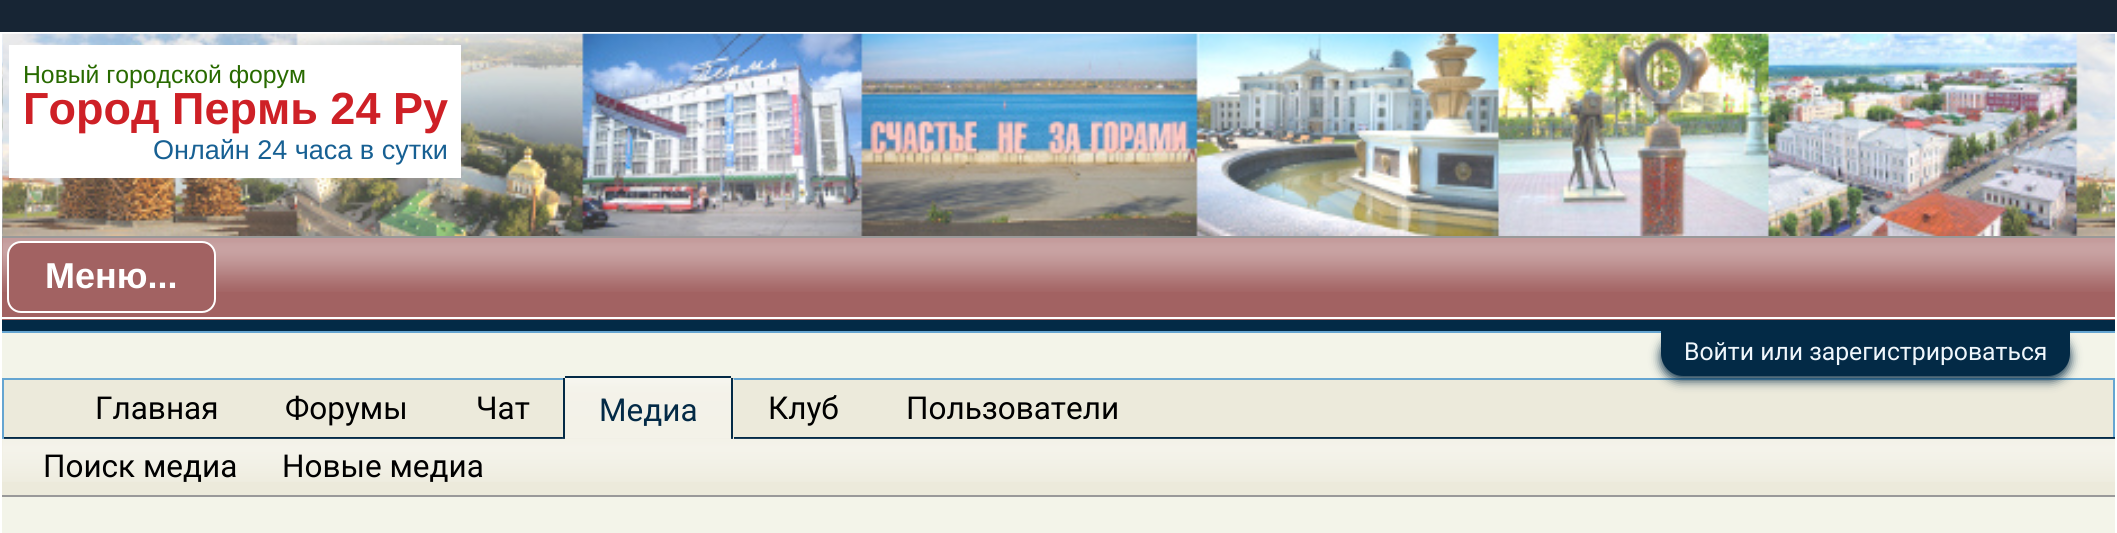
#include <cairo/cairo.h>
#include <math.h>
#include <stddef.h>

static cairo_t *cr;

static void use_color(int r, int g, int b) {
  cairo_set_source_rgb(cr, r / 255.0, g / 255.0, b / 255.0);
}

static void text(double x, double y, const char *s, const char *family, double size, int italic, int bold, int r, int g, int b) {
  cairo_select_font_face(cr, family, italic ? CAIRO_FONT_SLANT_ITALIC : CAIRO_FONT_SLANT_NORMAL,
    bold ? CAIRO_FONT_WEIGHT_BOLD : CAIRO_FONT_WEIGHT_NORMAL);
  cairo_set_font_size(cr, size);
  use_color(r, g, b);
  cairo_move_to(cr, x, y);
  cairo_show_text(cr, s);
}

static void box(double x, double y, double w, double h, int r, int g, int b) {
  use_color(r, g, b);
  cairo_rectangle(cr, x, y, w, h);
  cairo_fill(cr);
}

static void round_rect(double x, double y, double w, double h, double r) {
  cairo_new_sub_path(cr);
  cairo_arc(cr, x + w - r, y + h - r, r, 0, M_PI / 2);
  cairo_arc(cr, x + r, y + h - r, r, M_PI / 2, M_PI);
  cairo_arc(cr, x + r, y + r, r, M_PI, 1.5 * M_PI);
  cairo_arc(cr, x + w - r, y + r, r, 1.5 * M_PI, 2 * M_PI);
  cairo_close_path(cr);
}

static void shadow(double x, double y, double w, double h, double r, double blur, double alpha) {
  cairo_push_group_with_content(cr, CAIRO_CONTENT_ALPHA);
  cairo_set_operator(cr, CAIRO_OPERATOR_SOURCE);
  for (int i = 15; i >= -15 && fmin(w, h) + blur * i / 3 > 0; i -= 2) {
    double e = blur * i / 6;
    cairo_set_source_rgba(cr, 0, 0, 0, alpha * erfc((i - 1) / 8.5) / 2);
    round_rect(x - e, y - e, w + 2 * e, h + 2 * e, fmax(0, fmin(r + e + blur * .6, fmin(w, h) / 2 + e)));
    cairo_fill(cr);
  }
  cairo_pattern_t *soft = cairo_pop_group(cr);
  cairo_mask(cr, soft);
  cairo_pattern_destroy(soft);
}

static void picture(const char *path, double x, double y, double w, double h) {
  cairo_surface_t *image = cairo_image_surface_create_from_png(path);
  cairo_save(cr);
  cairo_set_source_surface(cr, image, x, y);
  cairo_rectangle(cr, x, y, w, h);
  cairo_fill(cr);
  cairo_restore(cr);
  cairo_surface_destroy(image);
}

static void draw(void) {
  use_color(23, 37, 52);
  cairo_paint(cr);
  box(0, 32, 2117, 501, 255, 255, 255);
  picture("img_01.png", 2, 33, 2113, 203);
  box(9, 45, 452, 133, 255, 255, 255);
  box(2, 320, 2113, 11, 3, 42, 70);
  box(2, 331, 2113, 2, 101, 165, 209);
  box(2, 333, 2113, 45, 243, 244, 233);
  box(4, 380, 2109, 57, 236, 234, 219);
  box(2, 378, 2113, 2, 101, 165, 209);
  use_color(3, 42, 70);
  shadow(1661, 335, 409, 45, 22.5, 5.5, 1);
  box(2, 238, 2113, 82, 162, 98, 98);
  picture("img_02.png", 2, 238, 2113, 54);
  box(2, 236, 2113, 2, 153, 153, 153);
  box(2, 317, 2113, 2, 255, 255, 255);
  use_color(162, 98, 98);
  round_rect(8, 242, 207, 70, 13);
  cairo_fill_preserve(cr);
  use_color(255, 255, 255);
  cairo_stroke(cr);
  use_color(3, 42, 70);
  cairo_new_path(cr);
  cairo_move_to(cr, 1661, 331);
  cairo_line_to(cr, 2070, 331);
  cairo_line_to(cr, 2070, 353.5);
  cairo_curve_to(cr, 2070, 366, 2060, 376, 2047.5, 376);
  cairo_line_to(cr, 1683.5, 376);
  cairo_curve_to(cr, 1671, 376, 1661, 366, 1661, 353.5);
  cairo_close_path(cr);
  cairo_fill(cr);
  box(2113, 378, 2, 61, 101, 165, 209);
  box(2, 437, 2113, 2, 3, 42, 70);
  box(2, 378, 2, 61, 101, 165, 209);
  use_color(236, 234, 219);
  cairo_new_path(cr);
  cairo_move_to(cr, 568, 376);
  cairo_line_to(cr, 729, 376);
  cairo_curve_to(cr, 732, 376, 734, 378, 734, 381);
  cairo_line_to(cr, 734, 439);
  cairo_line_to(cr, 563, 439);
  cairo_line_to(cr, 563, 381);
  cairo_curve_to(cr, 563, 378, 565, 376, 568, 376);
  cairo_close_path(cr);
  cairo_fill(cr);
  picture("img_03.png", 562, 378, 172, 61);
  box(565, 376, 166, 2, 3, 42, 70);
  box(731, 378, 2, 61, 3, 42, 70);
  box(563, 378, 2, 61, 3, 42, 70);
  box(2, 439, 2113, 56, 236, 234, 219);
  picture("img_04.png", 2, 438, 2113, 44);
  box(2, 495, 2113, 2, 153, 153, 153);
  box(2, 497, 2113, 36, 243, 244, 233);
  text(23, 83, "Новый городской форум", "Liberation Sans", 24.75, 0, 0, 40, 106, 0);
  text(23, 124, "Город Пермь 24 Ру", "Liberation Sans", 45, 0, 1, 206, 32, 38);
  text(153, 159, "Онлайн 24 часа в сутки", "Liberation Sans", 27, 0, 0, 23, 96, 147);
  text(45, 288, "Меню...", "Liberation Sans", 36, 0, 1, 255, 255, 255);
  text(1684, 360, "Войти или зарегистрироваться", "Roboto", 24.75, 0, 0, 240, 247, 252);
  text(95, 419, "Главная", "Roboto", 31.5, 0, 0, 0, 0, 0);
  text(285, 419, "Форумы", "Roboto", 31.5, 0, 0, 0, 0, 0);
  text(476, 419, "Чат", "Roboto", 31.5, 0, 0, 0, 0, 0);
  text(768, 419, "Клуб", "Roboto", 31.5, 0, 0, 0, 0, 0);
  text(906, 419, "Пользователи", "Roboto", 31.5, 0, 0, 0, 0, 0);
  text(599, 421, "Медиа", "Roboto", 31.5, 0, 0, 3, 42, 70);
  text(43, 477, "Поиск медиа", "Roboto", 31.5, 0, 0, 0, 0, 0);
  text(282, 477, "Новые медиа", "Roboto", 31.5, 0, 0, 0, 0, 0);
}

int main(void) {
  cairo_surface_t *surface = cairo_image_surface_create(CAIRO_FORMAT_RGB24, 2117, 533);
  cr = cairo_create(surface);
  cairo_font_options_t *options = cairo_font_options_create();
  cairo_font_options_set_hint_metrics(options, CAIRO_HINT_METRICS_OFF);
  cairo_font_options_set_hint_style(options, CAIRO_HINT_STYLE_NONE);
  cairo_set_font_options(cr, options);
  cairo_set_miter_limit(cr, 4);
  draw();
  cairo_surface_write_to_png(surface, "out.png");
  cairo_font_options_destroy(options);
  cairo_destroy(cr);
  cairo_surface_destroy(surface);
  return 0;
}
